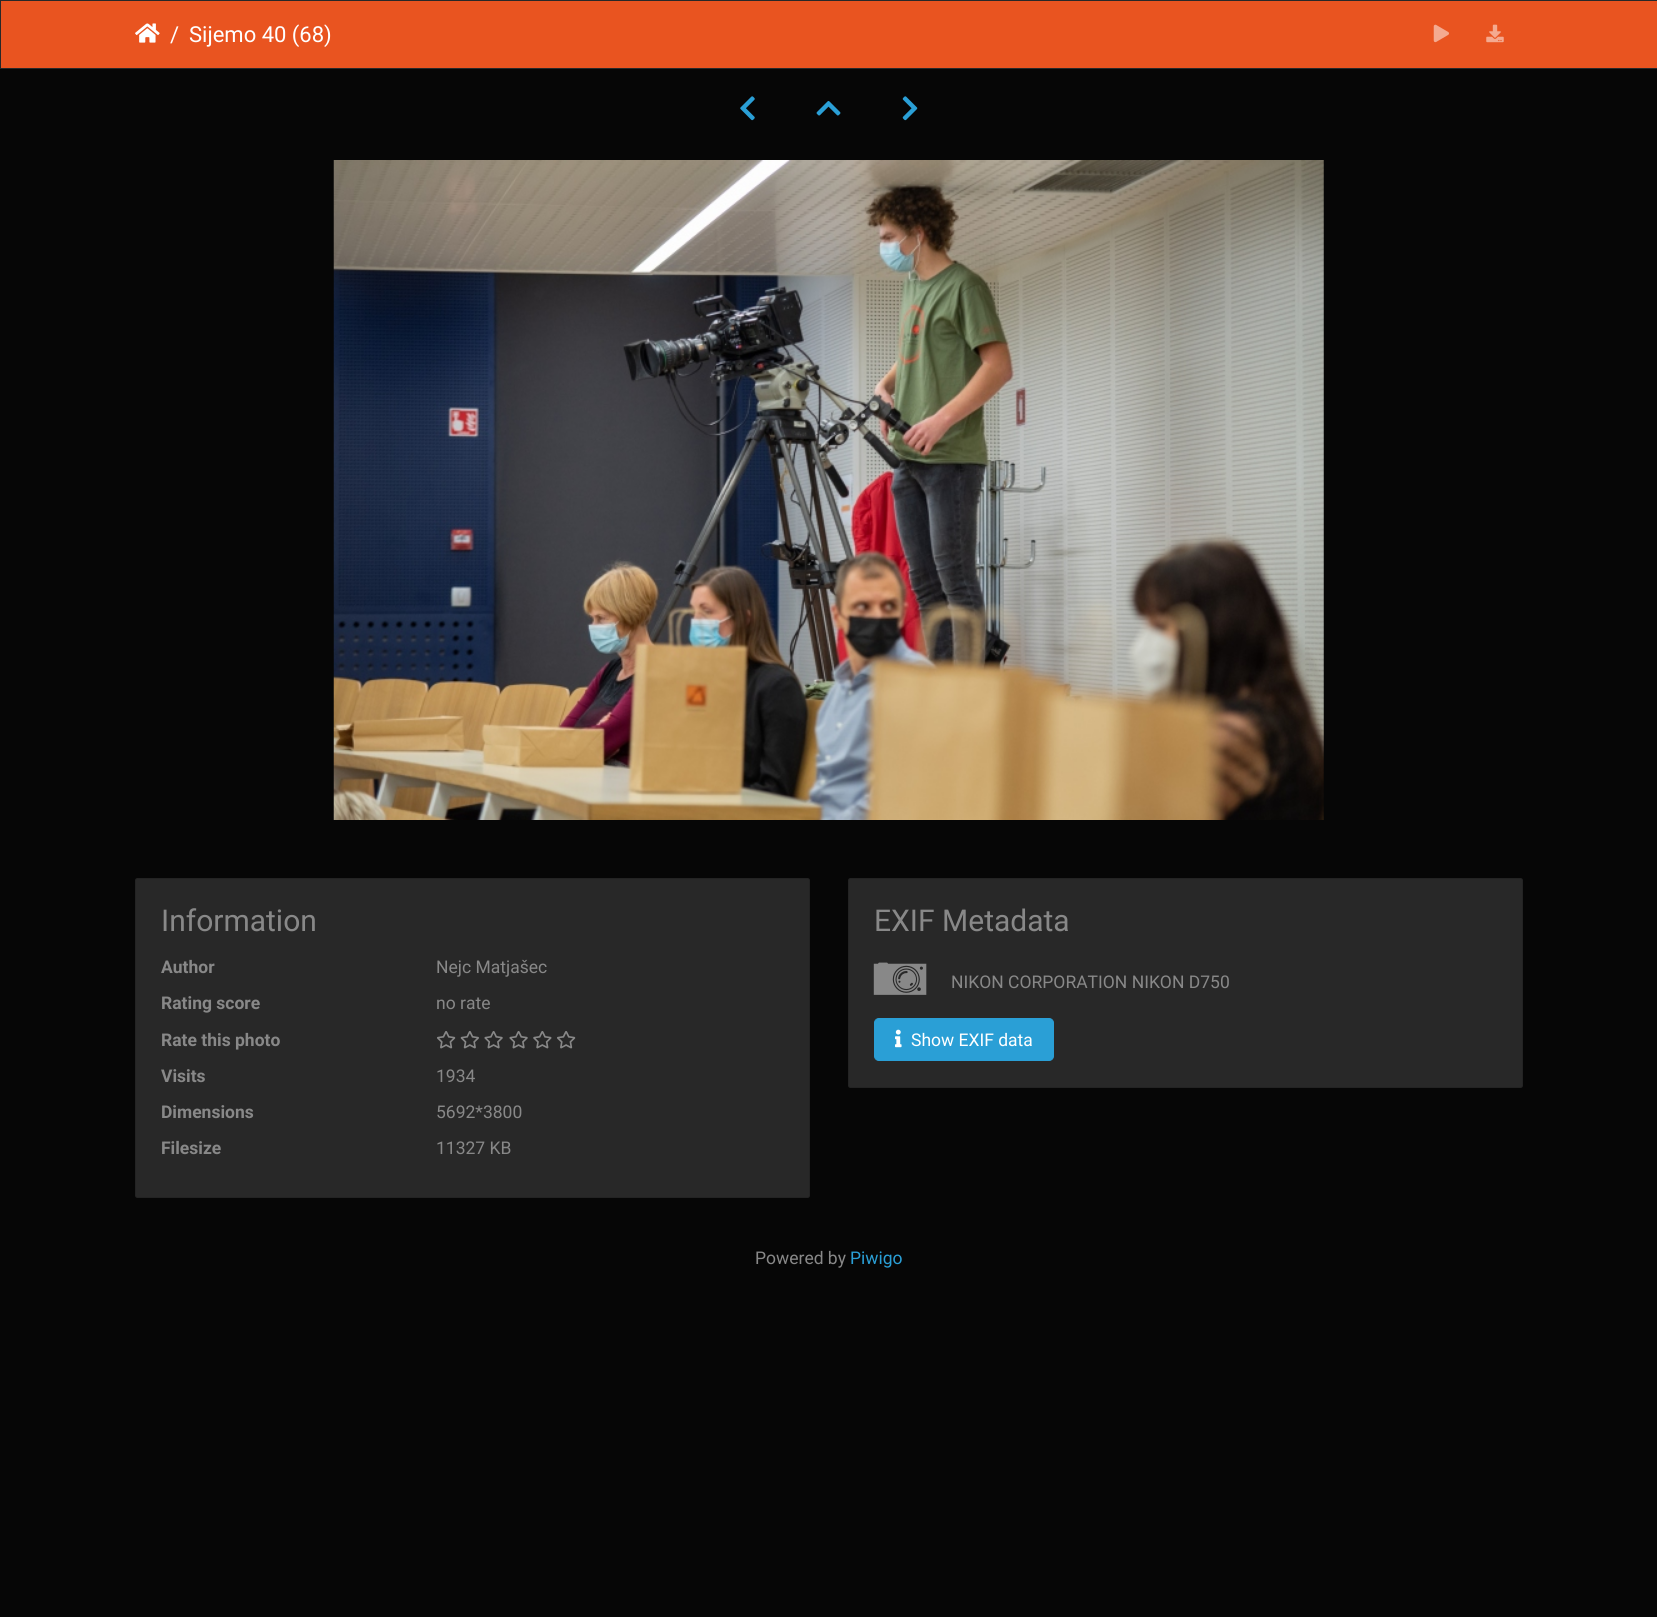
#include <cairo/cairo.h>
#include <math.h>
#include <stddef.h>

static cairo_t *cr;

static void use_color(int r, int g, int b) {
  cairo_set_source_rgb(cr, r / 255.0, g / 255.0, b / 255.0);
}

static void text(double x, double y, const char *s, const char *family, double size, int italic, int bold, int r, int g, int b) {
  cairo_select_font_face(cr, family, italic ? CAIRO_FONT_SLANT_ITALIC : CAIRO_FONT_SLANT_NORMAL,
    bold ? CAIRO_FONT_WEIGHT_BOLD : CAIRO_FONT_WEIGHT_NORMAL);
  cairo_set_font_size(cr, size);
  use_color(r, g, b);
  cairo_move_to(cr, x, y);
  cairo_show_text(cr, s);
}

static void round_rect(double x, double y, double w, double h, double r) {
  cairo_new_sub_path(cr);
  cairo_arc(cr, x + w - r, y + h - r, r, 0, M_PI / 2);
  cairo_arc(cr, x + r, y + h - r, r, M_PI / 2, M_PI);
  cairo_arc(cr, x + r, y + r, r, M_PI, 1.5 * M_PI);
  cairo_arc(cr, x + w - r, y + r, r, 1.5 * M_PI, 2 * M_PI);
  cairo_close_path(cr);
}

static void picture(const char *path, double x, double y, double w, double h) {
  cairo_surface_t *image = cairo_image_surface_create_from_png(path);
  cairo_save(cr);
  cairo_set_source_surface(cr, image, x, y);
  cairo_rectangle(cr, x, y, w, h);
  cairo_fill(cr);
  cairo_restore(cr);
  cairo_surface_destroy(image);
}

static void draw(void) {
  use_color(6, 6, 6);
  cairo_paint(cr);
  use_color(233, 84, 32);
  cairo_rectangle(cr, 0.5, 0.5, 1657, 68);
  cairo_fill_preserve(cr);
  use_color(40, 40, 40);
  cairo_set_line_width(cr, 1);
  cairo_stroke(cr);
  picture("img_01.png", 135, 23, 25, 20);
  picture("img_02.png", 1433, 24, 16, 19);
  picture("img_03.png", 1486, 24, 18, 19);
  picture("img_04.png", 740, 96, 15, 25);
  picture("img_05.png", 816, 101, 25, 15);
  picture("img_06.png", 902, 96, 16, 25);
  picture("img_07.png", 333, 160, 991, 660);
  round_rect(135, 878, 675, 320, 2.5);
  cairo_fill(cr);
  round_rect(135.5, 878.5, 674, 319, 2);
  cairo_set_source_rgba(cr, 0, 0, 0, 0.12);
  cairo_stroke(cr);
  picture("img_08.png", 437, 1031, 19, 18);
  picture("img_09.png", 460, 1031, 19, 18);
  picture("img_10.png", 484, 1031, 19, 18);
  picture("img_10.png", 509, 1031, 19, 18);
  picture("img_11.png", 533, 1031, 19, 18);
  picture("img_08.png", 557, 1031, 19, 18);
  use_color(40, 40, 40);
  round_rect(848, 878, 675, 210, 2.5);
  cairo_fill(cr);
  round_rect(848.5, 878.5, 674, 209, 2);
  cairo_set_source_rgba(cr, 0, 0, 0, 0.12);
  cairo_stroke(cr);
  picture("img_12.png", 873, 962, 54, 33);
  use_color(42, 159, 214);
  round_rect(874.5, 1018.5, 179, 42, 4.5);
  cairo_fill_preserve(cr);
  cairo_stroke(cr);
  picture("img_13.png", 895, 1029, 7, 19);
  text(170, 42, "/", "Roboto", 22, 0, 0, 255, 255, 255);
  text(189, 42, "Sijemo 40 (68)", "Roboto", 22, 0, 0, 255, 255, 255);
  text(161, 931, "Information", "Roboto", 30, 0, 0, 136, 136, 136);
  text(161, 973, "Author", "Roboto", 17.5, 0, 1, 136, 136, 136);
  text(436, 973, "Nejc Matjašec", "Roboto", 17.5, 0, 0, 136, 136, 136);
  text(161, 1009, "Rating score", "Roboto", 17.5, 0, 1, 136, 136, 136);
  text(436, 1009, "no rate", "Roboto", 17.5, 0, 0, 136, 136, 136);
  text(161, 1046, "Rate this photo", "Roboto", 17.5, 0, 1, 136, 136, 136);
  text(161, 1082, "Visits", "Roboto", 17.5, 0, 1, 136, 136, 136);
  text(436, 1082, "1934", "Roboto", 17.5, 0, 0, 136, 136, 136);
  text(161, 1118, "Dimensions", "Roboto", 17.5, 0, 1, 136, 136, 136);
  text(436, 1118, "5692*3800", "Roboto", 17.5, 0, 0, 136, 136, 136);
  text(161, 1154, "Filesize", "Roboto", 17.5, 0, 1, 136, 136, 136);
  text(436, 1154, "11327 KB", "Roboto", 17.5, 0, 0, 136, 136, 136);
  text(874, 931, "EXIF Metadata", "Roboto", 30, 0, 0, 136, 136, 136);
  text(951, 988, "NIKON CORPORATION NIKON D750", "Roboto", 17.5, 0, 0, 136, 136, 136);
  text(911, 1046, "Show EXIF data", "Roboto", 17.5, 0, 0, 255, 255, 255);
  text(755, 1264, "Powered by", "Roboto", 17.5, 0, 0, 136, 136, 136);
  text(850, 1264, "Piwigo", "Roboto", 17.5, 0, 0, 42, 159, 214);
}

int main(void) {
  cairo_surface_t *surface = cairo_image_surface_create(CAIRO_FORMAT_RGB24, 1657, 1617);
  cr = cairo_create(surface);
  cairo_font_options_t *options = cairo_font_options_create();
  cairo_font_options_set_hint_metrics(options, CAIRO_HINT_METRICS_OFF);
  cairo_font_options_set_hint_style(options, CAIRO_HINT_STYLE_NONE);
  cairo_set_font_options(cr, options);
  cairo_set_miter_limit(cr, 4);
  draw();
  cairo_surface_write_to_png(surface, "out.png");
  cairo_font_options_destroy(options);
  cairo_destroy(cr);
  cairo_surface_destroy(surface);
  return 0;
}
